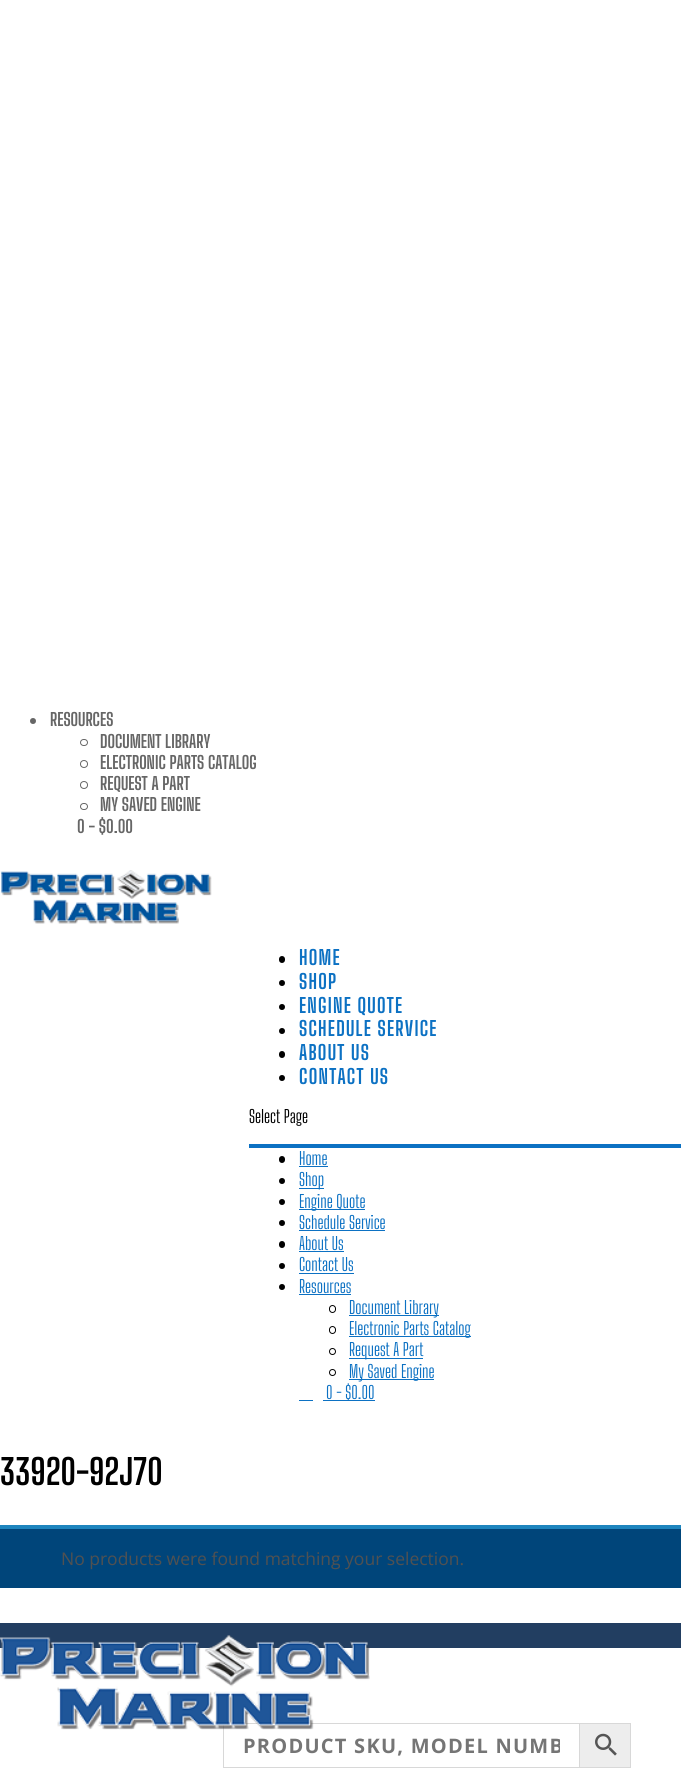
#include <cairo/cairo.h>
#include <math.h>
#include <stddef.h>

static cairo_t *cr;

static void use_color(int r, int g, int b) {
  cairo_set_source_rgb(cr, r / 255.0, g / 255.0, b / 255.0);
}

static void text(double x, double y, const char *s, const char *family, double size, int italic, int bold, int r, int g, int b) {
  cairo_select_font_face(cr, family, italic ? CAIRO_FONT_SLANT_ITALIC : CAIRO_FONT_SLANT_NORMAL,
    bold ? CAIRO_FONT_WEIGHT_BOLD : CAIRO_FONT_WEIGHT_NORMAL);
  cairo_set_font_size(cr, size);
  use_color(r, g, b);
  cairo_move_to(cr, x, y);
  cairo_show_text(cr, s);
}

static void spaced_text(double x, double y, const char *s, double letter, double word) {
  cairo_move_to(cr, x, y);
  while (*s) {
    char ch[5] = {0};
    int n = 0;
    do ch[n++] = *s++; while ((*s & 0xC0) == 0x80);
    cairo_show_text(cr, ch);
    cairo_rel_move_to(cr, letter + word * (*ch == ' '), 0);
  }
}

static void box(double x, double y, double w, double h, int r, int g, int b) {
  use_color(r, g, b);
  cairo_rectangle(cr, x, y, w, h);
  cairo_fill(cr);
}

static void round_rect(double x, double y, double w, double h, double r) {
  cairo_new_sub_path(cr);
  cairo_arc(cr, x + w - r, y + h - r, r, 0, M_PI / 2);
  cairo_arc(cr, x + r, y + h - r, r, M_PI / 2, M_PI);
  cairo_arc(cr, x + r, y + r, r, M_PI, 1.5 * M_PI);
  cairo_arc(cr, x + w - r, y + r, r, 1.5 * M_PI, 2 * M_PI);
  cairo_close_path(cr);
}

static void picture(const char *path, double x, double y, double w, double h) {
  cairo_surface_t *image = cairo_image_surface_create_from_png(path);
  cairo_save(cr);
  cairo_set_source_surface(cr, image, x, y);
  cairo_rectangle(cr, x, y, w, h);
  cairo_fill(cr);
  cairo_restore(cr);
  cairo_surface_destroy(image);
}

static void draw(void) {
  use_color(255, 255, 255);
  cairo_paint(cr);
  use_color(102, 102, 102);
  cairo_arc(cr, 33, 721, 3, 0, 2 * M_PI);
  cairo_fill(cr);
  round_rect(80.5, 739.5, 7, 6, 3);
  cairo_set_line_width(cr, 1);
  cairo_stroke(cr);
  cairo_arc(cr, 84, 764, 3.5, 0, 2 * M_PI);
  cairo_stroke(cr);
  cairo_arc(cr, 84, 785, 3.5, 0, 2 * M_PI);
  cairo_stroke(cr);
  round_rect(80.5, 803.5, 7, 6, 3);
  cairo_stroke(cr);
  picture("img_01.png", 0, 870, 212, 54);
  use_color(0, 0, 0);
  round_rect(279, 956, 6, 7, 3);
  cairo_fill(cr);
  cairo_arc(cr, 282, 983, 3, 0, 2 * M_PI);
  cairo_fill(cr);
  cairo_arc(cr, 282, 1007, 3, 0, 2 * M_PI);
  cairo_fill(cr);
  cairo_arc(cr, 282, 1031, 3, 0, 2 * M_PI);
  cairo_fill(cr);
  round_rect(279, 1051, 6, 7, 3);
  cairo_fill(cr);
  cairo_arc(cr, 282, 1078, 3, 0, 2 * M_PI);
  cairo_fill(cr);
  box(249, 1144, 432, 4, 12, 113, 195);
  use_color(0, 0, 0);
  round_rect(279, 1156, 6, 7, 3);
  cairo_fill(cr);
  box(299, 1166, 29, 1, 12, 113, 195);
  use_color(0, 0, 0);
  cairo_arc(cr, 282, 1181, 3, 0, 2 * M_PI);
  cairo_fill(cr);
  box(299, 1188, 25, 1, 12, 113, 195);
  use_color(0, 0, 0);
  cairo_arc(cr, 282, 1202, 3, 0, 2 * M_PI);
  cairo_fill(cr);
  box(299, 1209, 66, 1, 12, 113, 195);
  use_color(0, 0, 0);
  cairo_arc(cr, 282, 1223, 3, 0, 2 * M_PI);
  cairo_fill(cr);
  box(299, 1230, 86, 1, 12, 113, 195);
  use_color(0, 0, 0);
  round_rect(279, 1241, 6, 7, 3);
  cairo_fill(cr);
  box(299, 1251, 45, 1, 12, 113, 195);
  use_color(0, 0, 0);
  cairo_arc(cr, 282, 1266, 3, 0, 2 * M_PI);
  cairo_fill(cr);
  box(299, 1273, 55, 1, 12, 113, 195);
  use_color(0, 0, 0);
  cairo_arc(cr, 282, 1287, 3, 0, 2 * M_PI);
  cairo_fill(cr);
  box(299, 1294, 52, 1, 12, 113, 195);
  round_rect(329.5, 1305.5, 6, 7, 3);
  use_color(0, 0, 0);
  cairo_stroke(cr);
  box(349, 1315, 90, 1, 12, 113, 195);
  round_rect(329.5, 1326.5, 6, 7, 3);
  use_color(0, 0, 0);
  cairo_stroke(cr);
  box(349, 1336, 122, 1, 12, 113, 195);
  cairo_arc(cr, 332.5, 1351.5, 3, 0, 2 * M_PI);
  use_color(0, 0, 0);
  cairo_stroke(cr);
  box(349, 1358, 74, 1, 12, 113, 195);
  cairo_arc(cr, 332.5, 1372.5, 3, 0, 2 * M_PI);
  use_color(0, 0, 0);
  cairo_stroke(cr);
  box(349, 1379, 85, 1, 12, 113, 195);
  box(299, 1400, 14, 1, 12, 113, 195);
  box(323, 1400, 52, 1, 12, 113, 195);
  use_color(237, 237, 237);
  cairo_rectangle(cr, 579.5, 1723.5, 51, 44);
  cairo_fill_preserve(cr);
  use_color(216, 216, 216);
  cairo_stroke(cr);
  cairo_rectangle(cr, 223.5, 1723.5, 356, 44);
  cairo_stroke(cr);
  picture("img_02.png", 595, 1733, 22, 23);
  box(0, 1529, 681, 59, 0, 69, 122);
  box(0, 1525, 681, 4, 30, 133, 190);
  box(0, 1623, 681, 25, 34, 62, 97);
  picture("img_03.png", 0, 1635, 370, 95);
  text(50, 726, "RESOURCES", "Big Shoulders Display", 17.5, 0, 1, 102, 102, 102);
  text(100, 748, "DOCUMENT LIBRARY", "Big Shoulders Display", 17.5, 0, 1, 102, 102, 102);
  text(100, 769, "ELECTRONIC PARTS CATALOG", "Big Shoulders Display", 17.5, 0, 1, 102, 102, 102);
  text(100, 790, "REQUEST A PART", "Big Shoulders Display", 17.5, 0, 1, 102, 102, 102);
  text(100, 811, "MY SAVED ENGINE", "Big Shoulders Display", 17.5, 0, 1, 102, 102, 102);
  text(77, 833, "0 - $0.00", "Big Shoulders Display", 17.5, 0, 1, 102, 102, 102);
  cairo_set_font_size(cr, 20);
  use_color(12, 113, 195);
  spaced_text(299, 965, "HOME", 1.25, 0);
  spaced_text(299, 989, "SHOP", 1.25, 0);
  spaced_text(299, 1013, "ENGINE QUOTE", 1.25, 0);
  spaced_text(299, 1036, "SCHEDULE SERVICE", 1.25, 0);
  spaced_text(299, 1060, "ABOUT US", 1.25, 0);
  spaced_text(299, 1084, "CONTACT US", 1.25, 0);
  text(249, 1123, "Select Page", "Big Shoulders Display", 17.5, 0, 0, 0, 0, 0);
  text(299, 1165, "Home", "Big Shoulders Display", 17.5, 0, 0, 12, 113, 195);
  text(299, 1186, "Shop", "Big Shoulders Display", 17.5, 0, 0, 12, 113, 195);
  text(299, 1208, "Engine Quote", "Big Shoulders Display", 17.5, 0, 0, 12, 113, 195);
  text(299, 1229, "Schedule Service", "Big Shoulders Display", 17.5, 0, 0, 12, 113, 195);
  text(299, 1250, "About Us", "Big Shoulders Display", 17.5, 0, 0, 12, 113, 195);
  text(299, 1271, "Contact Us", "Big Shoulders Display", 17.5, 0, 0, 12, 113, 195);
  text(299, 1293, "Resources", "Big Shoulders Display", 17.5, 0, 0, 12, 113, 195);
  text(349, 1314, "Document Library", "Big Shoulders Display", 17.5, 0, 0, 12, 113, 195);
  text(349, 1335, "Electronic Parts Catalog", "Big Shoulders Display", 17.5, 0, 0, 12, 113, 195);
  text(349, 1356, "Request A Part", "Big Shoulders Display", 17.5, 0, 0, 12, 113, 195);
  text(349, 1378, "My Saved Engine", "Big Shoulders Display", 17.5, 0, 0, 12, 113, 195);
  text(326, 1399, "0 - $0.00", "Big Shoulders Display", 17.5, 0, 0, 12, 113, 195);
  cairo_save(cr);
  cairo_rectangle(cr, 243, 1731, 317, 28);
  cairo_clip(cr);
  cairo_select_font_face(cr, "Open Sans", CAIRO_FONT_SLANT_NORMAL, CAIRO_FONT_WEIGHT_BOLD);
  cairo_set_font_size(cr, 20);
  use_color(117, 117, 117);
  spaced_text(243, 1753, "PRODUCT SKU, MODEL NUMB", 1.25, 0);
  cairo_restore(cr);
  text(0, 1485, "33920-92J70", "Big Shoulders Display", 35, 0, 1, 0, 0, 0);
  text(61, 1565, "No products were found matching your selection.", "Open Sans", 17.5, 0, 0, 81, 81, 81);
}

int main(void) {
  cairo_surface_t *surface = cairo_image_surface_create(CAIRO_FORMAT_RGB24, 681, 1784);
  cr = cairo_create(surface);
  cairo_font_options_t *options = cairo_font_options_create();
  cairo_font_options_set_hint_metrics(options, CAIRO_HINT_METRICS_OFF);
  cairo_font_options_set_hint_style(options, CAIRO_HINT_STYLE_NONE);
  cairo_set_font_options(cr, options);
  cairo_set_miter_limit(cr, 4);
  draw();
  cairo_surface_write_to_png(surface, "out.png");
  cairo_font_options_destroy(options);
  cairo_destroy(cr);
  cairo_surface_destroy(surface);
  return 0;
}
